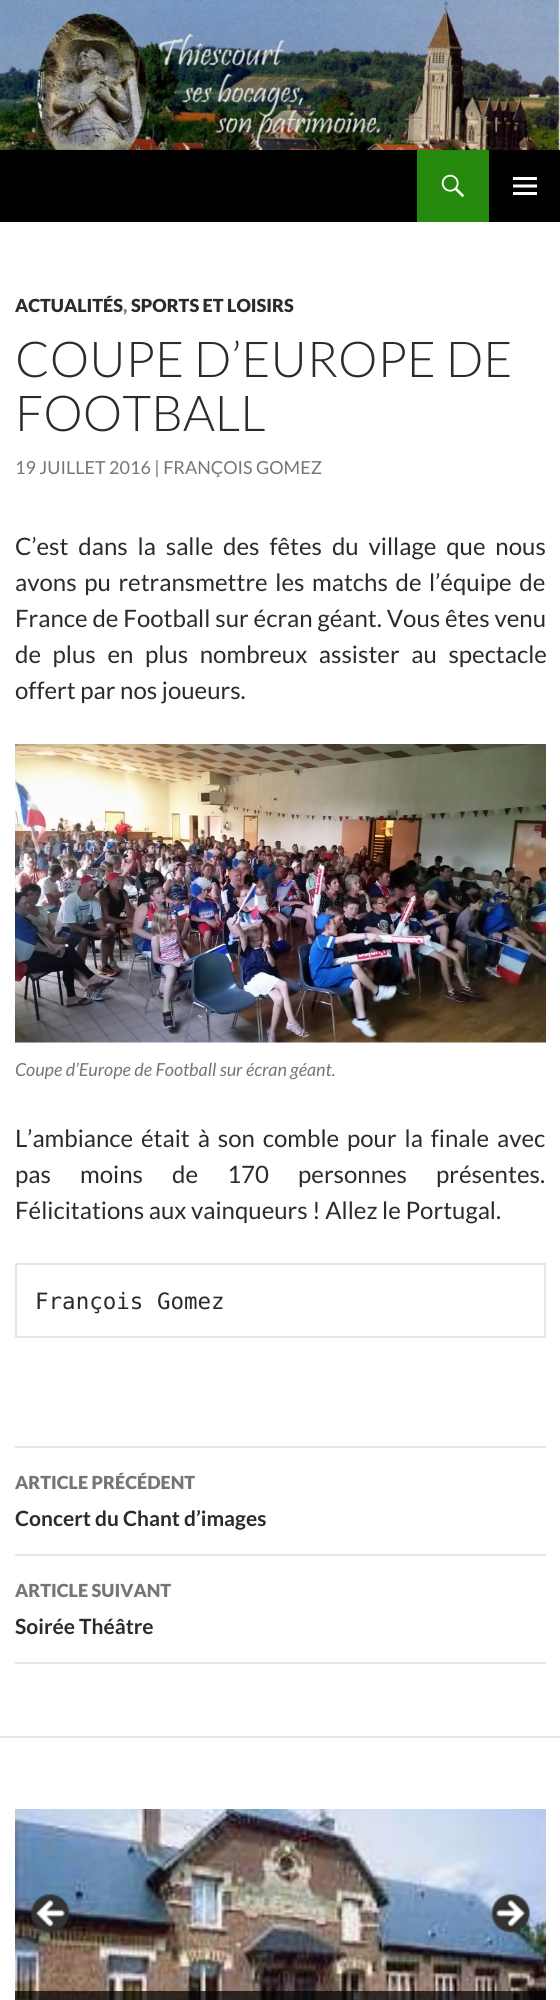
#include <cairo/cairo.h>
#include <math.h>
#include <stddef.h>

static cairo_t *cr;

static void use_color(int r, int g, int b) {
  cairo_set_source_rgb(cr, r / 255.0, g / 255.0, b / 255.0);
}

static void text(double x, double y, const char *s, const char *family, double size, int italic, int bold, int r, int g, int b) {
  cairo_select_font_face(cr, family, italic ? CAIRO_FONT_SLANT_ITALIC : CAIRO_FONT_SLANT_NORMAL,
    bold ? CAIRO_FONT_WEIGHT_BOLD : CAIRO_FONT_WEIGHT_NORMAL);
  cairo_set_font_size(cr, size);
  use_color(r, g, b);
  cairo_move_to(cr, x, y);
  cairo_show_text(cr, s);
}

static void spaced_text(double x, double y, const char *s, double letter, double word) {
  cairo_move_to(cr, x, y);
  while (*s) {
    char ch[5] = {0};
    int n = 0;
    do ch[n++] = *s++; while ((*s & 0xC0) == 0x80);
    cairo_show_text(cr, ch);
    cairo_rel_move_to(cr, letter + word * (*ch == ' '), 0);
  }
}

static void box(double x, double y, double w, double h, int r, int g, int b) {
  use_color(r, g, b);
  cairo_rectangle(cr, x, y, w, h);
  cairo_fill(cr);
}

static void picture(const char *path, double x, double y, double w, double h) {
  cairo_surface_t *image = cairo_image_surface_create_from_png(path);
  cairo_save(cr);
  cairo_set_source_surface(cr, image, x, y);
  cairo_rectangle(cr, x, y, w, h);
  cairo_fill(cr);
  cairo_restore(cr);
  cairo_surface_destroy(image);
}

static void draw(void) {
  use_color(255, 255, 255);
  cairo_paint(cr);
  picture("img_01.png", 0, 0, 560, 150);
  box(0, 150, 560, 72, 0, 0, 0);
  box(417, 150, 72, 72, 36, 137, 13);
  picture("img_02.png", 441, 174, 24, 24);
  picture("img_03.png", 513, 177, 24, 18);
  picture("img_04.png", 15, 744, 531, 299);
  cairo_rectangle(cr, 16, 1264, 529, 73);
  use_color(230, 230, 230);
  cairo_stroke(cr);
  box(15, 1446, 531, 2, 230, 230, 230);
  box(15, 1554, 531, 2, 230, 230, 230);
  box(15, 1662, 531, 2, 230, 230, 230);
  box(0, 1736, 560, 2, 230, 230, 230);
  picture("img_05.png", 15, 1809, 531, 191);
  cairo_set_source_rgba(cr, 0, 0, 0, 0.7);
  cairo_rectangle(cr, 15, 1991, 531, 9);
  cairo_fill(cr);
  picture("img_06.png", 31, 1894, 39, 39);
  picture("img_07.png", 491, 1894, 39, 39);
  text(15, 312, "ACTUALITÉS", "Lato Black", 18, 0, 0, 43, 43, 43);
  text(123, 312, ",", "Lato Black", 18, 0, 0, 118, 118, 118);
  text(131, 312, "SPORTS ET LOISIRS", "Lato Black", 18, 0, 0, 43, 43, 43);
  text(15, 377, "COUPE D’EUROPE DE", "Lato Light", 49.5, 0, 0, 43, 43, 43);
  text(15, 431, "FOOTBALL", "Lato Light", 49.5, 0, 0, 43, 43, 43);
  text(15, 474, "19 JUILLET 2016 | FRANÇOIS GOMEZ", "Lato", 18, 0, 0, 118, 118, 118);
  cairo_set_font_size(cr, 24);
  use_color(43, 43, 43);
  spaced_text(15, 555, "C’est dans la salle des fêtes du village que nous", 0, 5.25);
  spaced_text(15, 591, "avons pu retransmettre les matchs de l’équipe de", 0, 3);
  spaced_text(15, 627, "France de Football sur écran géant. Vous êtes venu", 0, 0.25);
  spaced_text(15, 663, "de plus en plus nombreux assister au spectacle", 0, 7);
  text(15, 699, "offert par nos joueurs.", "Lato", 24, 0, 0, 43, 43, 43);
  text(15, 1076, "Coupe d’Europe de Football sur écran géant.", "Lato", 18, 1, 0, 118, 118, 118);
  cairo_select_font_face(cr, "Lato", CAIRO_FONT_SLANT_NORMAL, CAIRO_FONT_WEIGHT_NORMAL);
  cairo_set_font_size(cr, 24);
  use_color(43, 43, 43);
  spaced_text(15, 1147, "L’ambiance était à son comble pour la finale avec", 0, 3.25);
  spaced_text(15, 1183, "pas moins de 170 personnes présentes.", 0, 24.5);
  text(15, 1219, "Félicitations aux vainqueurs ! Allez le Portugal.", "Lato", 24, 0, 0, 43, 43, 43);
  text(35, 1309, "François Gomez", "DejaVu Sans Mono", 22.5, 0, 0, 43, 43, 43);
  text(15, 1489, "ARTICLE PRÉCÉDENT", "Lato Black", 18, 0, 0, 118, 118, 118);
  text(15, 1526, "Concert du Chant d’images", "Lato", 21, 0, 1, 43, 43, 43);
  text(15, 1597, "ARTICLE SUIVANT", "Lato Black", 18, 0, 0, 118, 118, 118);
  text(15, 1634, "Soirée Théâtre", "Lato", 21, 0, 1, 43, 43, 43);
}

int main(void) {
  cairo_surface_t *surface = cairo_image_surface_create(CAIRO_FORMAT_RGB24, 560, 2000);
  cr = cairo_create(surface);
  cairo_font_options_t *options = cairo_font_options_create();
  cairo_font_options_set_hint_metrics(options, CAIRO_HINT_METRICS_OFF);
  cairo_font_options_set_hint_style(options, CAIRO_HINT_STYLE_NONE);
  cairo_set_font_options(cr, options);
  cairo_set_miter_limit(cr, 4);
  draw();
  cairo_surface_write_to_png(surface, "out.png");
  cairo_font_options_destroy(options);
  cairo_destroy(cr);
  cairo_surface_destroy(surface);
  return 0;
}
